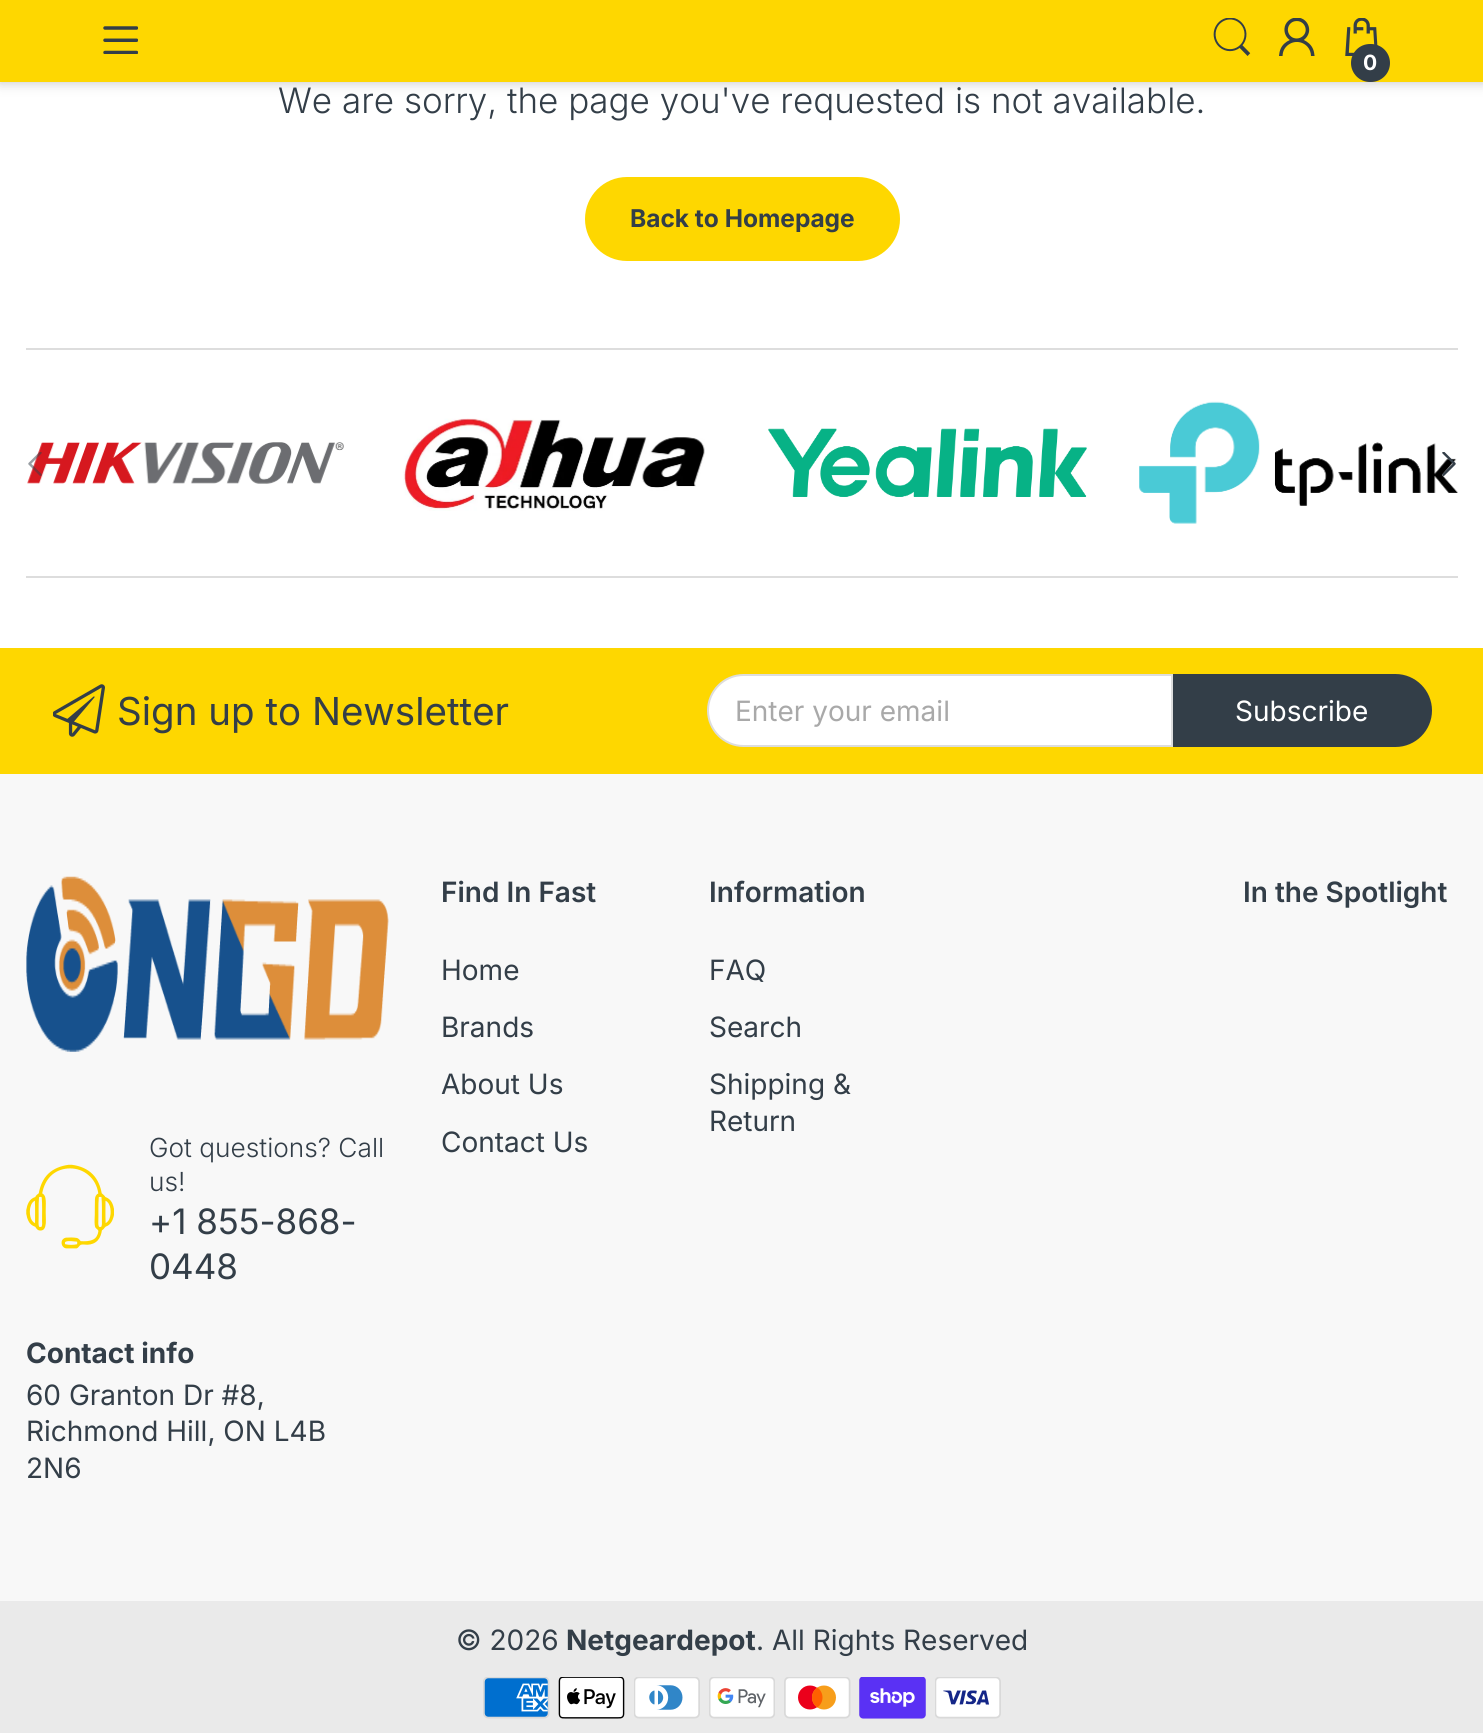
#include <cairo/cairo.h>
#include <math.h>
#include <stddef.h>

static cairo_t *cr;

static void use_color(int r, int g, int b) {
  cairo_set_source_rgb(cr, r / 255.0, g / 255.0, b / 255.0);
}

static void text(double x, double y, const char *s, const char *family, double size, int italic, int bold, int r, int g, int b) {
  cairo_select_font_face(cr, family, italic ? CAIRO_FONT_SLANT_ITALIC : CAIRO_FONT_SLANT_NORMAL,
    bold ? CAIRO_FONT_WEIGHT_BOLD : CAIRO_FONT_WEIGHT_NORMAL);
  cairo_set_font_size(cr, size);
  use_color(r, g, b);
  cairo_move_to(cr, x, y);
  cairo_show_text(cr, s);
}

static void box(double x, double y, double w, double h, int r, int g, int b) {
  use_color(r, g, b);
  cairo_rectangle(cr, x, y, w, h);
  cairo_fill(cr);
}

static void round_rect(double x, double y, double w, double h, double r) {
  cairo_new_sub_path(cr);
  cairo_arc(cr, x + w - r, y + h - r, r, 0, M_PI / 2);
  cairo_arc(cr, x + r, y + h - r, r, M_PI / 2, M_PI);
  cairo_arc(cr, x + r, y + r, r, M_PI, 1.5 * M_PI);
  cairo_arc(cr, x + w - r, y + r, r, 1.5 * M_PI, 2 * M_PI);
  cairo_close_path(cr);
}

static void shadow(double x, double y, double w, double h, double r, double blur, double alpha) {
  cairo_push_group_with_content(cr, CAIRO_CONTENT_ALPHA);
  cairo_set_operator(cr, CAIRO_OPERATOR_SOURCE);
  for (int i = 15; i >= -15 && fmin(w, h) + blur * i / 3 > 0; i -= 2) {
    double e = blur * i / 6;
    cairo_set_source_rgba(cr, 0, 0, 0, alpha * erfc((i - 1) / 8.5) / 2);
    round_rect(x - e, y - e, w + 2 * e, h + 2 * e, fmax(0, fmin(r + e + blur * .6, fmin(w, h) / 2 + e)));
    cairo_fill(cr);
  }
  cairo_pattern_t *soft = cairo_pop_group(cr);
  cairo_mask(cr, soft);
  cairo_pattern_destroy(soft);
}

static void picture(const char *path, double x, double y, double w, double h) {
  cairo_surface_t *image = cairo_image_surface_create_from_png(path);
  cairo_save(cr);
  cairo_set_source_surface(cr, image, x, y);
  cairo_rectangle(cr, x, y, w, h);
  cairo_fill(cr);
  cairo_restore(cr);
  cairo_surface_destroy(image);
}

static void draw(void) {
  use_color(255, 255, 255);
  cairo_paint(cr);
  use_color(32, 33, 36);
  shadow(0, 0, 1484, 82, 0, 5, 0.15);
  use_color(201, 201, 201);
  shadow(0, 0, 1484, 82, 0, 7, 0.75);
  box(0, 0, 1483, 82, 254, 215, 0);
  picture("img_01.png", 103, 26, 35, 28);
  picture("img_02.png", 1213, 18, 38, 38);
  picture("img_03.png", 1279, 18, 36, 38);
  picture("img_04.png", 1345, 18, 33, 38);
  use_color(51, 62, 72);
  round_rect(1351, 44, 39, 38, 19);
  cairo_fill(cr);
  use_color(254, 215, 0);
  round_rect(586, 178, 313, 82, 41);
  cairo_fill_preserve(cr);
  cairo_stroke(cr);
  box(26, 348, 1432, 2, 221, 221, 221);
  box(26, 576, 1432, 2, 221, 221, 221);
  picture("img_05.png", 27, 442, 317, 42);
  picture("img_06.png", 403, 418, 302, 93);
  picture("img_07.png", 768, 428, 319, 69);
  picture("img_08.png", 1139, 401, 319, 123);
  picture("img_09.png", 28, 452, 14, 24);
  picture("img_10.png", 1442, 452, 14, 24);
  box(0, 648, 1483, 126, 254, 215, 0);
  picture("img_11.png", 53, 684, 52, 53);
  use_color(255, 255, 255);
  cairo_new_path(cr);
  cairo_move_to(cr, 743.5, 675);
  cairo_line_to(cr, 1172, 675);
  cairo_line_to(cr, 1172, 746);
  cairo_line_to(cr, 743.5, 746);
  cairo_curve_to(cr, 724, 746, 708, 730, 708, 710.5);
  cairo_curve_to(cr, 708, 691, 724, 675, 743.5, 675);
  cairo_close_path(cr);
  cairo_fill_preserve(cr);
  use_color(221, 221, 221);
  cairo_stroke(cr);
  use_color(51, 62, 72);
  cairo_new_path(cr);
  cairo_move_to(cr, 1174, 675);
  cairo_line_to(cr, 1395.5, 675);
  cairo_curve_to(cr, 1415, 675, 1431, 691, 1431, 710.5);
  cairo_curve_to(cr, 1431, 730, 1415, 746, 1395.5, 746);
  cairo_line_to(cr, 1174, 746);
  cairo_close_path(cr);
  cairo_fill_preserve(cr);
  cairo_stroke(cr);
  box(0, 774, 1483, 827, 248, 248, 248);
  picture("img_12.png", 26, 876, 363, 176);
  picture("img_13.png", 26, 1164, 88, 85);
  box(0, 1601, 1483, 132, 234, 234, 234);
  picture("img_14.png", 483, 1677, 67, 42);
  picture("img_15.png", 558, 1677, 67, 42);
  picture("img_16.png", 634, 1677, 66, 42);
  picture("img_17.png", 709, 1677, 66, 42);
  picture("img_18.png", 784, 1677, 67, 42);
  picture("img_19.png", 859, 1677, 67, 42);
  picture("img_20.png", 935, 1677, 66, 42);
  text(1363, 70, "0", "Inter", 21, 0, 1, 255, 255, 255);
  text(278, 113, "We are sorry, the page you've requested is not available.", "Inter Light", 35, 0, 0, 51, 62, 72);
  text(630, 227, "Back to Homepage", "Inter", 24.5, 0, 1, 51, 62, 72);
  text(117, 725, "Sign up to Newsletter", "Inter", 38.5, 0, 0, 51, 62, 72);
  text(735, 721, "Enter your email", "Inter", 28, 0, 0, 169, 169, 169);
  text(1235, 721, "Subscribe", "Inter", 28, 0, 0, 255, 255, 255);
  text(441, 902, "Find In Fast", "Inter SemiBold", 28, 0, 0, 51, 62, 72);
  text(441, 980, "Home", "Inter", 28, 0, 0, 51, 62, 72);
  text(441, 1037, "Brands", "Inter", 28, 0, 0, 51, 62, 72);
  text(441, 1094, "About Us", "Inter", 28, 0, 0, 51, 62, 72);
  text(441, 1152, "Contact Us", "Inter", 28, 0, 0, 51, 62, 72);
  text(709, 902, "Information", "Inter SemiBold", 28, 0, 0, 51, 62, 72);
  text(709, 980, "FAQ", "Inter", 28, 0, 0, 51, 62, 72);
  text(709, 1037, "Search", "Inter", 28, 0, 0, 51, 62, 72);
  text(709, 1094, "Shipping &", "Inter", 28, 0, 0, 51, 62, 72);
  text(709, 1131, "Return", "Inter", 28, 0, 0, 51, 62, 72);
  text(1243, 902, "In the Spotlight", "Inter SemiBold", 28, 0, 0, 51, 62, 72);
  text(149, 1157, "Got questions? Call", "Inter Light", 26.25, 0, 0, 51, 62, 72);
  text(149, 1191, "us!", "Inter Light", 26.25, 0, 0, 51, 62, 72);
  text(149, 1234, "+1 855-868-", "Inter", 35, 0, 0, 51, 62, 72);
  text(149, 1279, "0448", "Inter", 35, 0, 0, 51, 62, 72);
  text(26, 1363, "Contact info", "Inter", 28, 0, 1, 51, 62, 72);
  text(26, 1405, "60 Granton Dr #8,", "Inter", 28, 0, 0, 51, 62, 72);
  text(26, 1441, "Richmond Hill, ON L4B", "Inter", 28, 0, 0, 51, 62, 72);
  text(26, 1478, "2N6", "Inter", 28, 0, 0, 51, 62, 72);
  text(456, 1650, "© 2026", "Inter", 28, 0, 0, 51, 62, 72);
  text(566, 1650, "Netgeardepot", "Inter", 28, 0, 1, 51, 62, 72);
  text(756, 1650, ". All Rights Reserved", "Inter", 28, 0, 0, 51, 62, 72);
}

int main(void) {
  cairo_surface_t *surface = cairo_image_surface_create(CAIRO_FORMAT_RGB24, 1483, 1733);
  cr = cairo_create(surface);
  cairo_font_options_t *options = cairo_font_options_create();
  cairo_font_options_set_hint_metrics(options, CAIRO_HINT_METRICS_OFF);
  cairo_font_options_set_hint_style(options, CAIRO_HINT_STYLE_NONE);
  cairo_set_font_options(cr, options);
  cairo_set_miter_limit(cr, 4);
  draw();
  cairo_surface_write_to_png(surface, "out.png");
  cairo_font_options_destroy(options);
  cairo_destroy(cr);
  cairo_surface_destroy(surface);
  return 0;
}
